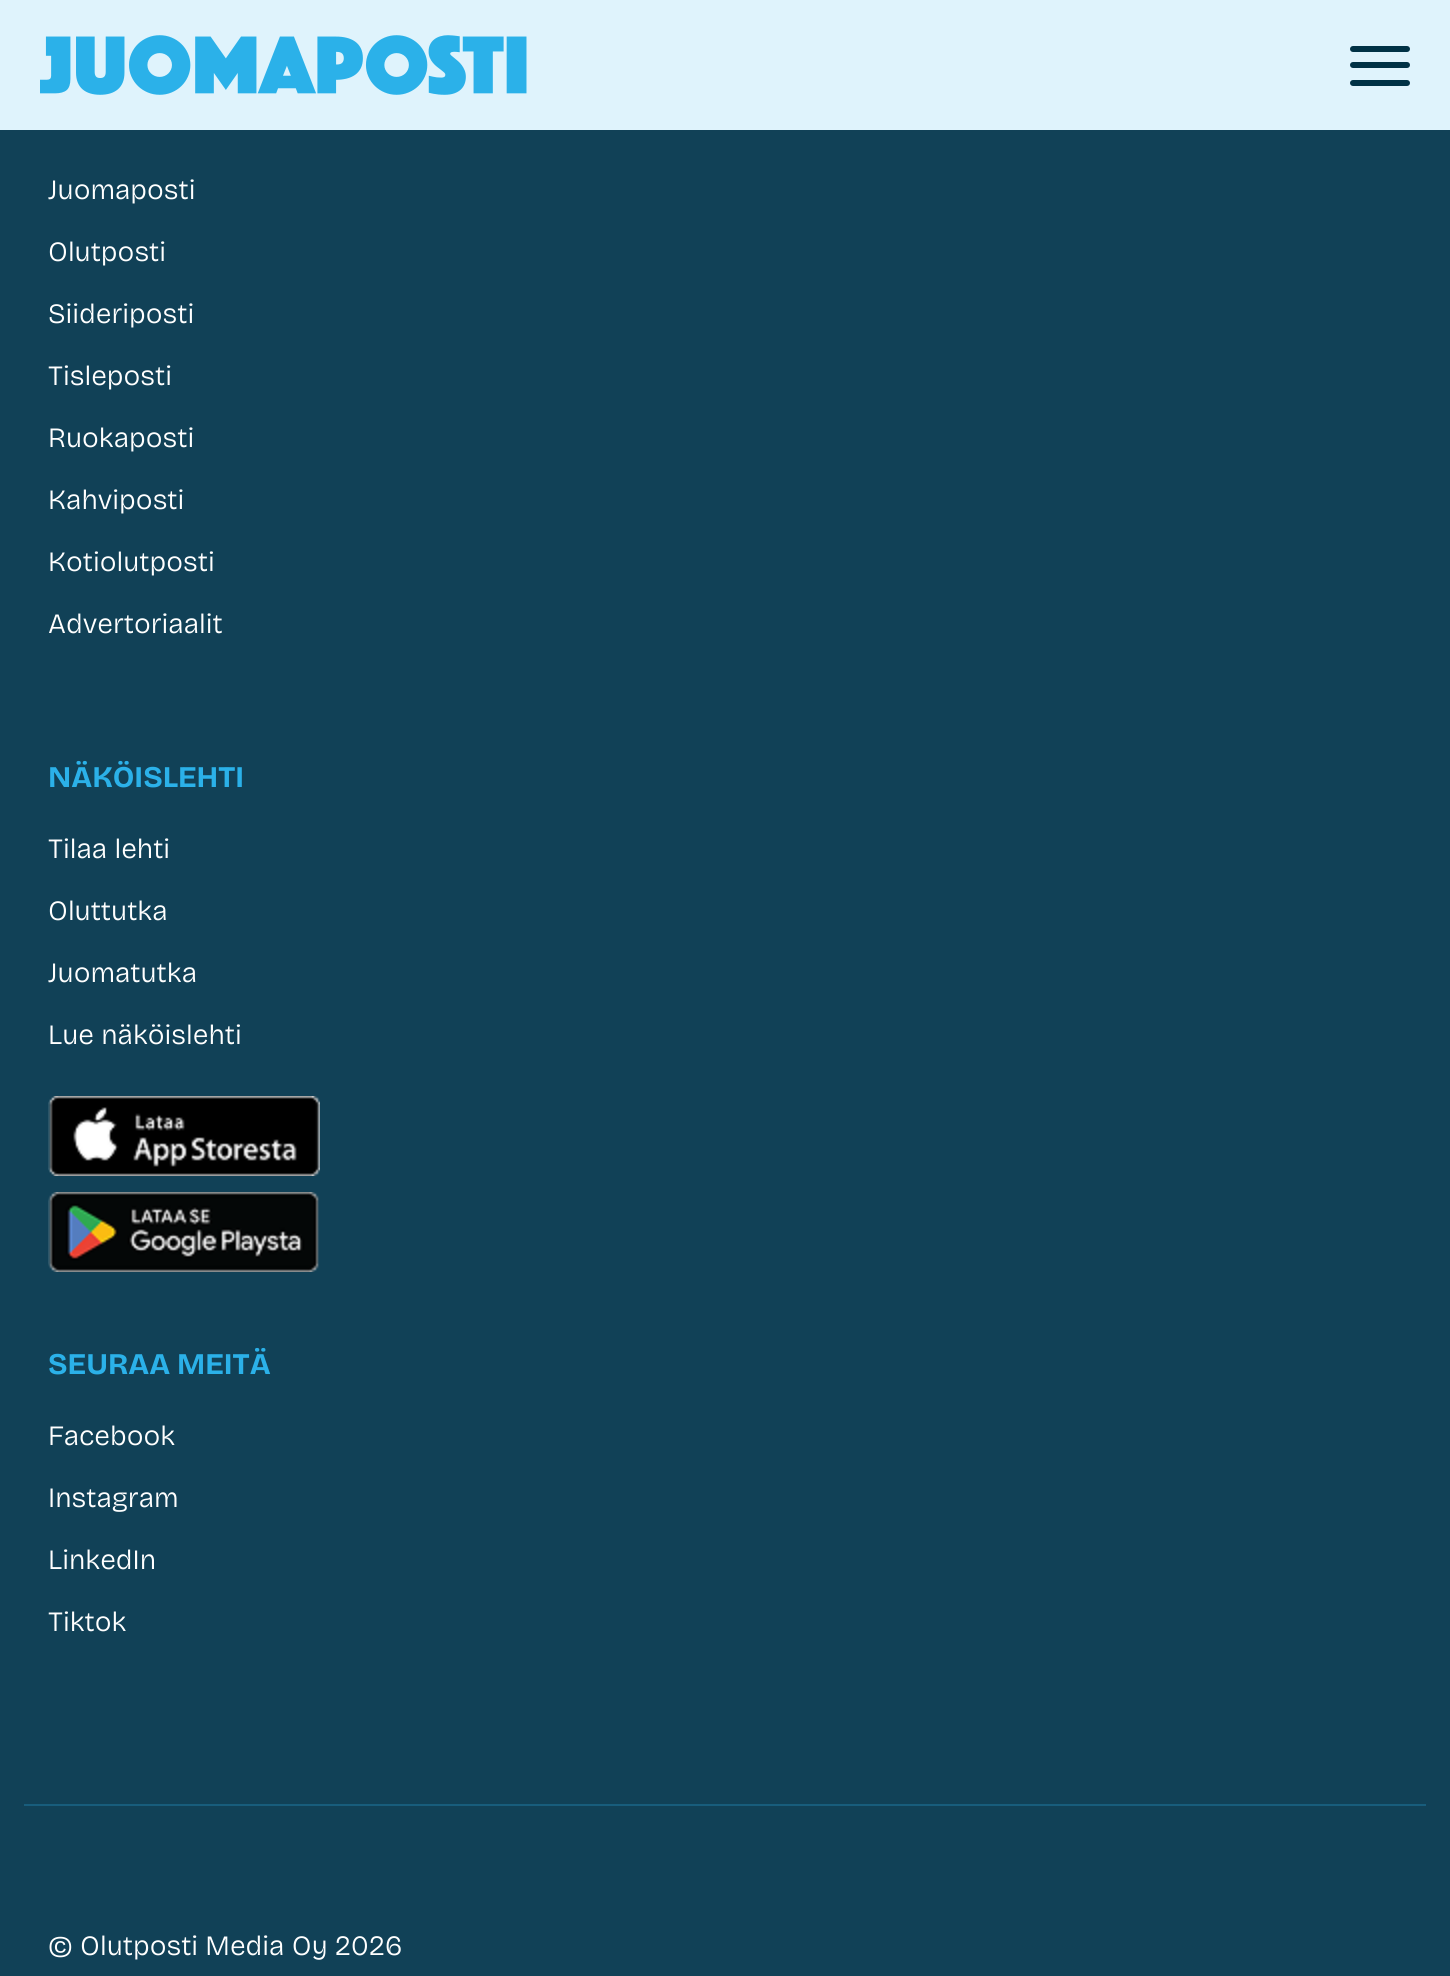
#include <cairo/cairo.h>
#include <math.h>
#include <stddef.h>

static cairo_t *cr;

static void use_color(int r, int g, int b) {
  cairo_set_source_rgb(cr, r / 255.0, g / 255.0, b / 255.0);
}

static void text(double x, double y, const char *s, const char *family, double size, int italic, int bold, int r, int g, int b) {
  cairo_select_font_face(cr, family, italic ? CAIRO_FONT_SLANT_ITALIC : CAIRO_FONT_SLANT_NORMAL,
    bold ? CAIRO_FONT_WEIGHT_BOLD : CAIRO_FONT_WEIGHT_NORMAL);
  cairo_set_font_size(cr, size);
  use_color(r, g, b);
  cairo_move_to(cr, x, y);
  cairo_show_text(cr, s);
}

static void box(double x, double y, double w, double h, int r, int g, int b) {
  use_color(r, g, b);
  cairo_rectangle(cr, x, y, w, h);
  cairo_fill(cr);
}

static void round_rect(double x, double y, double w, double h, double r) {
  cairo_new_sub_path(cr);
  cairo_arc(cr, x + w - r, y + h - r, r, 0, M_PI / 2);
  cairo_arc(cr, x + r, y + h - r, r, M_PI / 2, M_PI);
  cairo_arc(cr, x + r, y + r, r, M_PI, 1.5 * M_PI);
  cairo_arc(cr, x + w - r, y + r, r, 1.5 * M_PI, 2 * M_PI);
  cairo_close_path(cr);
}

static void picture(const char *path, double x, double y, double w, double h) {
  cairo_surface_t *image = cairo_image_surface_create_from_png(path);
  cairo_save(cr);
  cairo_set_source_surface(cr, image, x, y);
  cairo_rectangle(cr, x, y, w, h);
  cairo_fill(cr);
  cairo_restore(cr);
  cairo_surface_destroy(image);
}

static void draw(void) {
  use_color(17, 65, 87);
  cairo_paint(cr);
  box(0, 0, 1450, 130, 223, 243, 252);
  picture("img_01.png", 40, 35, 487, 60);
  use_color(0, 49, 69);
  round_rect(1350, 46, 60, 6, 3);
  cairo_fill(cr);
  round_rect(1350, 62, 60, 6, 3);
  cairo_fill(cr);
  round_rect(1350, 80, 60, 6, 3);
  cairo_fill(cr);
  picture("img_02.png", 48, 1096, 272, 80);
  picture("img_03.png", 48, 1192, 271, 80);
  box(24, 1804, 1402, 2, 24, 93, 124);
  text(48, 199, "Juomaposti", "Bricolage Grotesque Light", 28, 0, 0, 255, 255, 255);
  text(48, 261, "Olutposti", "Bricolage Grotesque Light", 28, 0, 0, 255, 255, 255);
  text(48, 323, "Siideriposti", "Bricolage Grotesque Light", 28, 0, 0, 255, 255, 255);
  text(48, 385, "Tisleposti", "Bricolage Grotesque Light", 28, 0, 0, 255, 255, 255);
  text(48, 447, "Ruokaposti", "Bricolage Grotesque Light", 28, 0, 0, 255, 255, 255);
  text(48, 509, "Kahviposti", "Bricolage Grotesque Light", 28, 0, 0, 255, 255, 255);
  text(48, 571, "Kotiolutposti", "Bricolage Grotesque Light", 28, 0, 0, 255, 255, 255);
  text(48, 633, "Advertoriaalit", "Bricolage Grotesque Light", 28, 0, 0, 255, 255, 255);
  text(48, 787, "NÄKÖISLEHTI", "Bricolage Grotesque", 30, 0, 1, 43, 177, 233);
  text(48, 858, "Tilaa lehti", "Bricolage Grotesque Light", 28, 0, 0, 255, 255, 255);
  text(48, 920, "Oluttutka", "Bricolage Grotesque Light", 28, 0, 0, 255, 255, 255);
  text(48, 982, "Juomatutka", "Bricolage Grotesque Light", 28, 0, 0, 255, 255, 255);
  text(48, 1044, "Lue näköislehti", "Bricolage Grotesque Light", 28, 0, 0, 255, 255, 255);
  text(48, 1374, "SEURAA MEITÄ", "Bricolage Grotesque", 30, 0, 1, 43, 177, 233);
  text(48, 1445, "Facebook", "Bricolage Grotesque Light", 28, 0, 0, 255, 255, 255);
  text(48, 1507, "Instagram", "Bricolage Grotesque Light", 28, 0, 0, 255, 255, 255);
  text(48, 1569, "LinkedIn", "Bricolage Grotesque Light", 28, 0, 0, 255, 255, 255);
  text(48, 1631, "Tiktok", "Bricolage Grotesque Light", 28, 0, 0, 255, 255, 255);
  text(48, 1955, "© Olutposti Media Oy 2026", "Bricolage Grotesque Light", 28, 0, 0, 255, 255, 255);
}

int main(void) {
  cairo_surface_t *surface = cairo_image_surface_create(CAIRO_FORMAT_RGB24, 1450, 1976);
  cr = cairo_create(surface);
  cairo_font_options_t *options = cairo_font_options_create();
  cairo_font_options_set_hint_metrics(options, CAIRO_HINT_METRICS_OFF);
  cairo_font_options_set_hint_style(options, CAIRO_HINT_STYLE_NONE);
  cairo_set_font_options(cr, options);
  cairo_set_miter_limit(cr, 4);
  draw();
  cairo_surface_write_to_png(surface, "out.png");
  cairo_font_options_destroy(options);
  cairo_destroy(cr);
  cairo_surface_destroy(surface);
  return 0;
}
